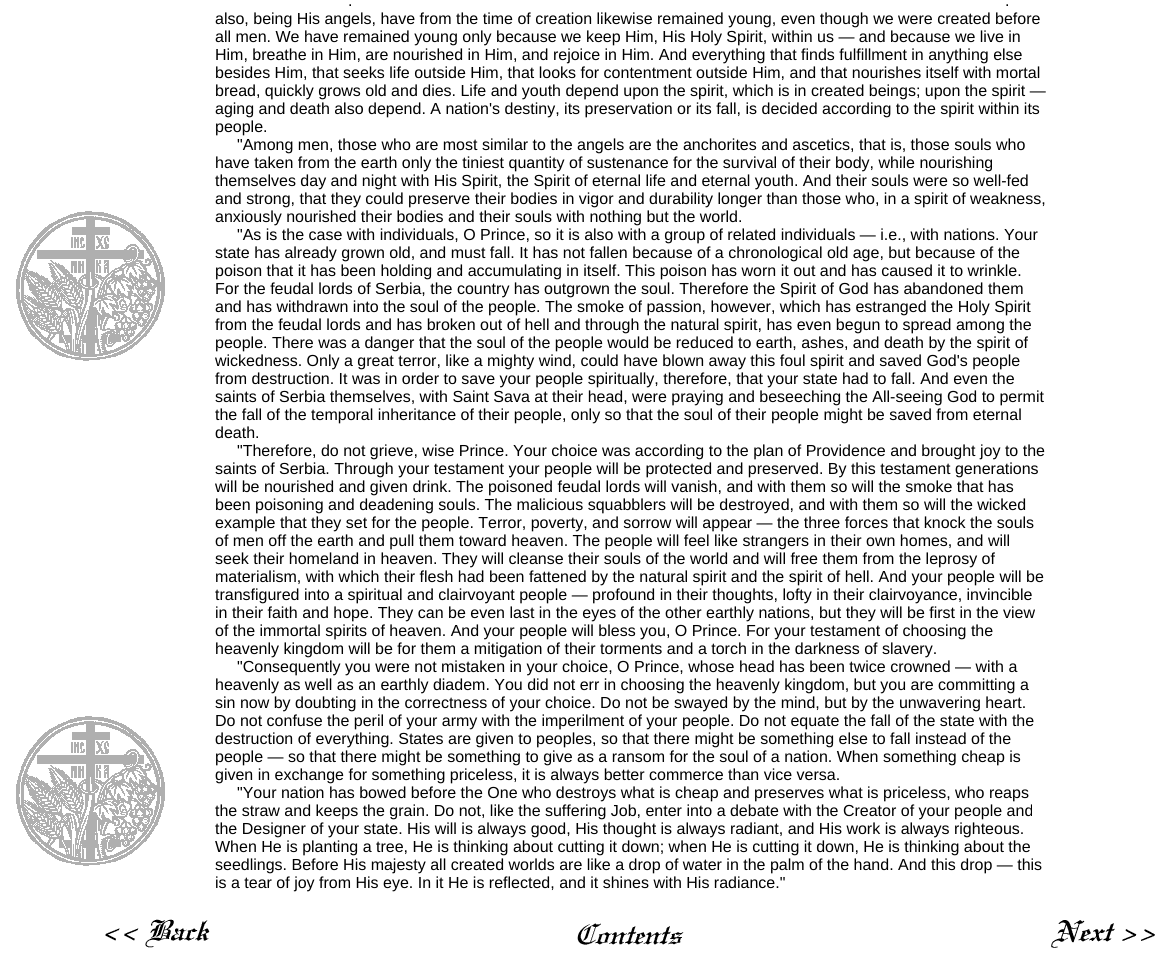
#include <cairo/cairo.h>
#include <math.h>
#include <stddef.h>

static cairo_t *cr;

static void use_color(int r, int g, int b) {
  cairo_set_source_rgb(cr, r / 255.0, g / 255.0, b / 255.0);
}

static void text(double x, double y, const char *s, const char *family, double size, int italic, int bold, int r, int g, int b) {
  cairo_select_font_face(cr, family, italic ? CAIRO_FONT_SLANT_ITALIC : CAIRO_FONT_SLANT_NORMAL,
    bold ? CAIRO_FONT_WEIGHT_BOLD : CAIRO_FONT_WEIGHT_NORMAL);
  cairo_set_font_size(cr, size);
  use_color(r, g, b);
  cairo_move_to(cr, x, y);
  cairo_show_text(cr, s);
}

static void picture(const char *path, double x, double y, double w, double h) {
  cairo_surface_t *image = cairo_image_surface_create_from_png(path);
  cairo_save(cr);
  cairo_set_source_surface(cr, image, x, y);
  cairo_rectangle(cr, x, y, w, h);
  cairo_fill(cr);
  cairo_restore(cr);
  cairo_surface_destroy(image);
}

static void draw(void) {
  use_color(255, 255, 255);
  cairo_paint(cr);
  picture("img_01.png", 16, 211, 149, 655);
  picture("img_02.png", 105, 919, 105, 29);
  picture("img_03.png", 577, 923, 107, 22);
  picture("img_04.png", 1051, 920, 104, 28);
  text(348, 6, ".", "Liberation Sans", 16, 0, 0, 0, 0, 0);
  text(1005, 6, ".", "Liberation Sans", 16, 0, 0, 0, 0, 0);
  text(215, 24, "also, being His angels, have from the time of creation likewise remained young, even though we were created before", "Liberation Sans", 16, 0, 0, 0, 0, 0);
  text(215, 42, "all men. We have remained young only because we keep Him, His Holy Spirit, within us — and because we live in", "Liberation Sans", 16, 0, 0, 0, 0, 0);
  text(215, 60, "Him, breathe in Him, are nourished in Him, and rejoice in Him. And everything that finds fulfillment in anything else", "Liberation Sans", 16, 0, 0, 0, 0, 0);
  text(215, 78, "besides Him, that seeks life outside Him, that looks for contentment outside Him, and that nourishes itself with mortal", "Liberation Sans", 16, 0, 0, 0, 0, 0);
  text(215, 96, "bread, quickly grows old and dies. Life and youth depend upon the spirit, which is in created beings; upon the spirit —", "Liberation Sans", 16, 0, 0, 0, 0, 0);
  text(215, 114, "aging and death also depend. A nation's destiny, its preservation or its fall, is decided according to the spirit within its", "Liberation Sans", 16, 0, 0, 0, 0, 0);
  text(215, 132, "people.", "Liberation Sans", 16, 0, 0, 0, 0, 0);
  text(237, 150, "\"Among men, those who are most similar to the angels are the anchorites and ascetics, that is, those souls who", "Liberation Sans", 16, 0, 0, 0, 0, 0);
  text(215, 168, "have taken from the earth only the tiniest quantity of sustenance for the survival of their body, while nourishing", "Liberation Sans", 16, 0, 0, 0, 0, 0);
  text(215, 186, "themselves day and night with His Spirit, the Spirit of eternal life and eternal youth. And their souls were so well-fed", "Liberation Sans", 16, 0, 0, 0, 0, 0);
  text(215, 204, "and strong, that they could preserve their bodies in vigor and durability longer than those who, in a spirit of weakness,", "Liberation Sans", 16, 0, 0, 0, 0, 0);
  text(215, 222, "anxiously nourished their bodies and their souls with nothing but the world.", "Liberation Sans", 16, 0, 0, 0, 0, 0);
  text(237, 240, "\"As is the case with individuals, O Prince, so it is also with a group of related individuals — i.e., with nations. Your", "Liberation Sans", 16, 0, 0, 0, 0, 0);
  text(215, 258, "state has already grown old, and must fall. It has not fallen because of a chronological old age, but because of the", "Liberation Sans", 16, 0, 0, 0, 0, 0);
  text(215, 276, "poison that it has been holding and accumulating in itself. This poison has worn it out and has caused it to wrinkle.", "Liberation Sans", 16, 0, 0, 0, 0, 0);
  text(215, 294, "For the feudal lords of Serbia, the country has outgrown the soul. Therefore the Spirit of God has abandoned them", "Liberation Sans", 16, 0, 0, 0, 0, 0);
  text(215, 312, "and has withdrawn into the soul of the people. The smoke of passion, however, which has estranged the Holy Spirit", "Liberation Sans", 16, 0, 0, 0, 0, 0);
  text(215, 330, "from the feudal lords and has broken out of hell and through the natural spirit, has even begun to spread among the", "Liberation Sans", 16, 0, 0, 0, 0, 0);
  text(215, 348, "people. There was a danger that the soul of the people would be reduced to earth, ashes, and death by the spirit of", "Liberation Sans", 16, 0, 0, 0, 0, 0);
  text(215, 366, "wickedness. Only a great terror, like a mighty wind, could have blown away this foul spirit and saved God's people", "Liberation Sans", 16, 0, 0, 0, 0, 0);
  text(215, 384, "from destruction. It was in order to save your people spiritually, therefore, that your state had to fall. And even the", "Liberation Sans", 16, 0, 0, 0, 0, 0);
  text(215, 402, "saints of Serbia themselves, with Saint Sava at their head, were praying and beseeching the All-seeing God to permit", "Liberation Sans", 16, 0, 0, 0, 0, 0);
  text(215, 420, "the fall of the temporal inheritance of their people, only so that the soul of their people might be saved from eternal", "Liberation Sans", 16, 0, 0, 0, 0, 0);
  text(215, 438, "death.", "Liberation Sans", 16, 0, 0, 0, 0, 0);
  text(237, 456, "\"Therefore, do not grieve, wise Prince. Your choice was according to the plan of Providence and brought joy to the", "Liberation Sans", 16, 0, 0, 0, 0, 0);
  text(215, 474, "saints of Serbia. Through your testament your people will be protected and preserved. By this testament generations", "Liberation Sans", 16, 0, 0, 0, 0, 0);
  text(215, 492, "will be nourished and given drink. The poisoned feudal lords will vanish, and with them so will the smoke that has", "Liberation Sans", 16, 0, 0, 0, 0, 0);
  text(215, 510, "been poisoning and deadening souls. The malicious squabblers will be destroyed, and with them so will the wicked", "Liberation Sans", 16, 0, 0, 0, 0, 0);
  text(215, 528, "example that they set for the people. Terror, poverty, and sorrow will appear — the three forces that knock the souls", "Liberation Sans", 16, 0, 0, 0, 0, 0);
  text(215, 546, "of men off the earth and pull them toward heaven. The people will feel like strangers in their own homes, and will", "Liberation Sans", 16, 0, 0, 0, 0, 0);
  text(215, 564, "seek their homeland in heaven. They will cleanse their souls of the world and will free them from the leprosy of", "Liberation Sans", 16, 0, 0, 0, 0, 0);
  text(215, 582, "materialism, with which their flesh had been fattened by the natural spirit and the spirit of hell. And your people will be", "Liberation Sans", 16, 0, 0, 0, 0, 0);
  text(215, 600, "transfigured into a spiritual and clairvoyant people — profound in their thoughts, lofty in their clairvoyance, invincible", "Liberation Sans", 16, 0, 0, 0, 0, 0);
  text(215, 618, "in their faith and hope. They can be even last in the eyes of the other earthly nations, but they will be first in the view", "Liberation Sans", 16, 0, 0, 0, 0, 0);
  text(215, 636, "of the immortal spirits of heaven. And your people will bless you, O Prince. For your testament of choosing the", "Liberation Sans", 16, 0, 0, 0, 0, 0);
  text(215, 654, "heavenly kingdom will be for them a mitigation of their torments and a torch in the darkness of slavery.", "Liberation Sans", 16, 0, 0, 0, 0, 0);
  text(237, 672, "\"Consequently you were not mistaken in your choice, O Prince, whose head has been twice crowned — with a", "Liberation Sans", 16, 0, 0, 0, 0, 0);
  text(215, 690, "heavenly as well as an earthly diadem. You did not err in choosing the heavenly kingdom, but you are committing a", "Liberation Sans", 16, 0, 0, 0, 0, 0);
  text(215, 708, "sin now by doubting in the correctness of your choice. Do not be swayed by the mind, but by the unwavering heart.", "Liberation Sans", 16, 0, 0, 0, 0, 0);
  text(215, 726, "Do not confuse the peril of your army with the imperilment of your people. Do not equate the fall of the state with the", "Liberation Sans", 16, 0, 0, 0, 0, 0);
  text(215, 744, "destruction of everything. States are given to peoples, so that there might be something else to fall instead of the", "Liberation Sans", 16, 0, 0, 0, 0, 0);
  text(215, 762, "people — so that there might be something to give as a ransom for the soul of a nation. When something cheap is", "Liberation Sans", 16, 0, 0, 0, 0, 0);
  text(215, 780, "given in exchange for something priceless, it is always better commerce than vice versa.", "Liberation Sans", 16, 0, 0, 0, 0, 0);
  text(237, 798, "\"Your nation has bowed before the One who destroys what is cheap and preserves what is priceless, who reaps", "Liberation Sans", 16, 0, 0, 0, 0, 0);
  text(215, 816, "the straw and keeps the grain. Do not, like the suffering Job, enter into a debate with the Creator of your people and", "Liberation Sans", 16, 0, 0, 0, 0, 0);
  text(215, 834, "the Designer of your state. His will is always good, His thought is always radiant, and His work is always righteous.", "Liberation Sans", 16, 0, 0, 0, 0, 0);
  text(215, 852, "When He is planting a tree, He is thinking about cutting it down; when He is cutting it down, He is thinking about the", "Liberation Sans", 16, 0, 0, 0, 0, 0);
  text(215, 870, "seedlings. Before His majesty all created worlds are like a drop of water in the palm of the hand. And this drop — this", "Liberation Sans", 16, 0, 0, 0, 0, 0);
  text(215, 888, "is a tear of joy from His eye. In it He is reflected, and it shines with His radiance.\"", "Liberation Sans", 16, 0, 0, 0, 0, 0);
}

int main(void) {
  cairo_surface_t *surface = cairo_image_surface_create(CAIRO_FORMAT_RGB24, 1167, 960);
  cr = cairo_create(surface);
  cairo_font_options_t *options = cairo_font_options_create();
  cairo_font_options_set_hint_metrics(options, CAIRO_HINT_METRICS_OFF);
  cairo_font_options_set_hint_style(options, CAIRO_HINT_STYLE_NONE);
  cairo_set_font_options(cr, options);
  cairo_set_miter_limit(cr, 4);
  draw();
  cairo_surface_write_to_png(surface, "out.png");
  cairo_font_options_destroy(options);
  cairo_destroy(cr);
  cairo_surface_destroy(surface);
  return 0;
}
